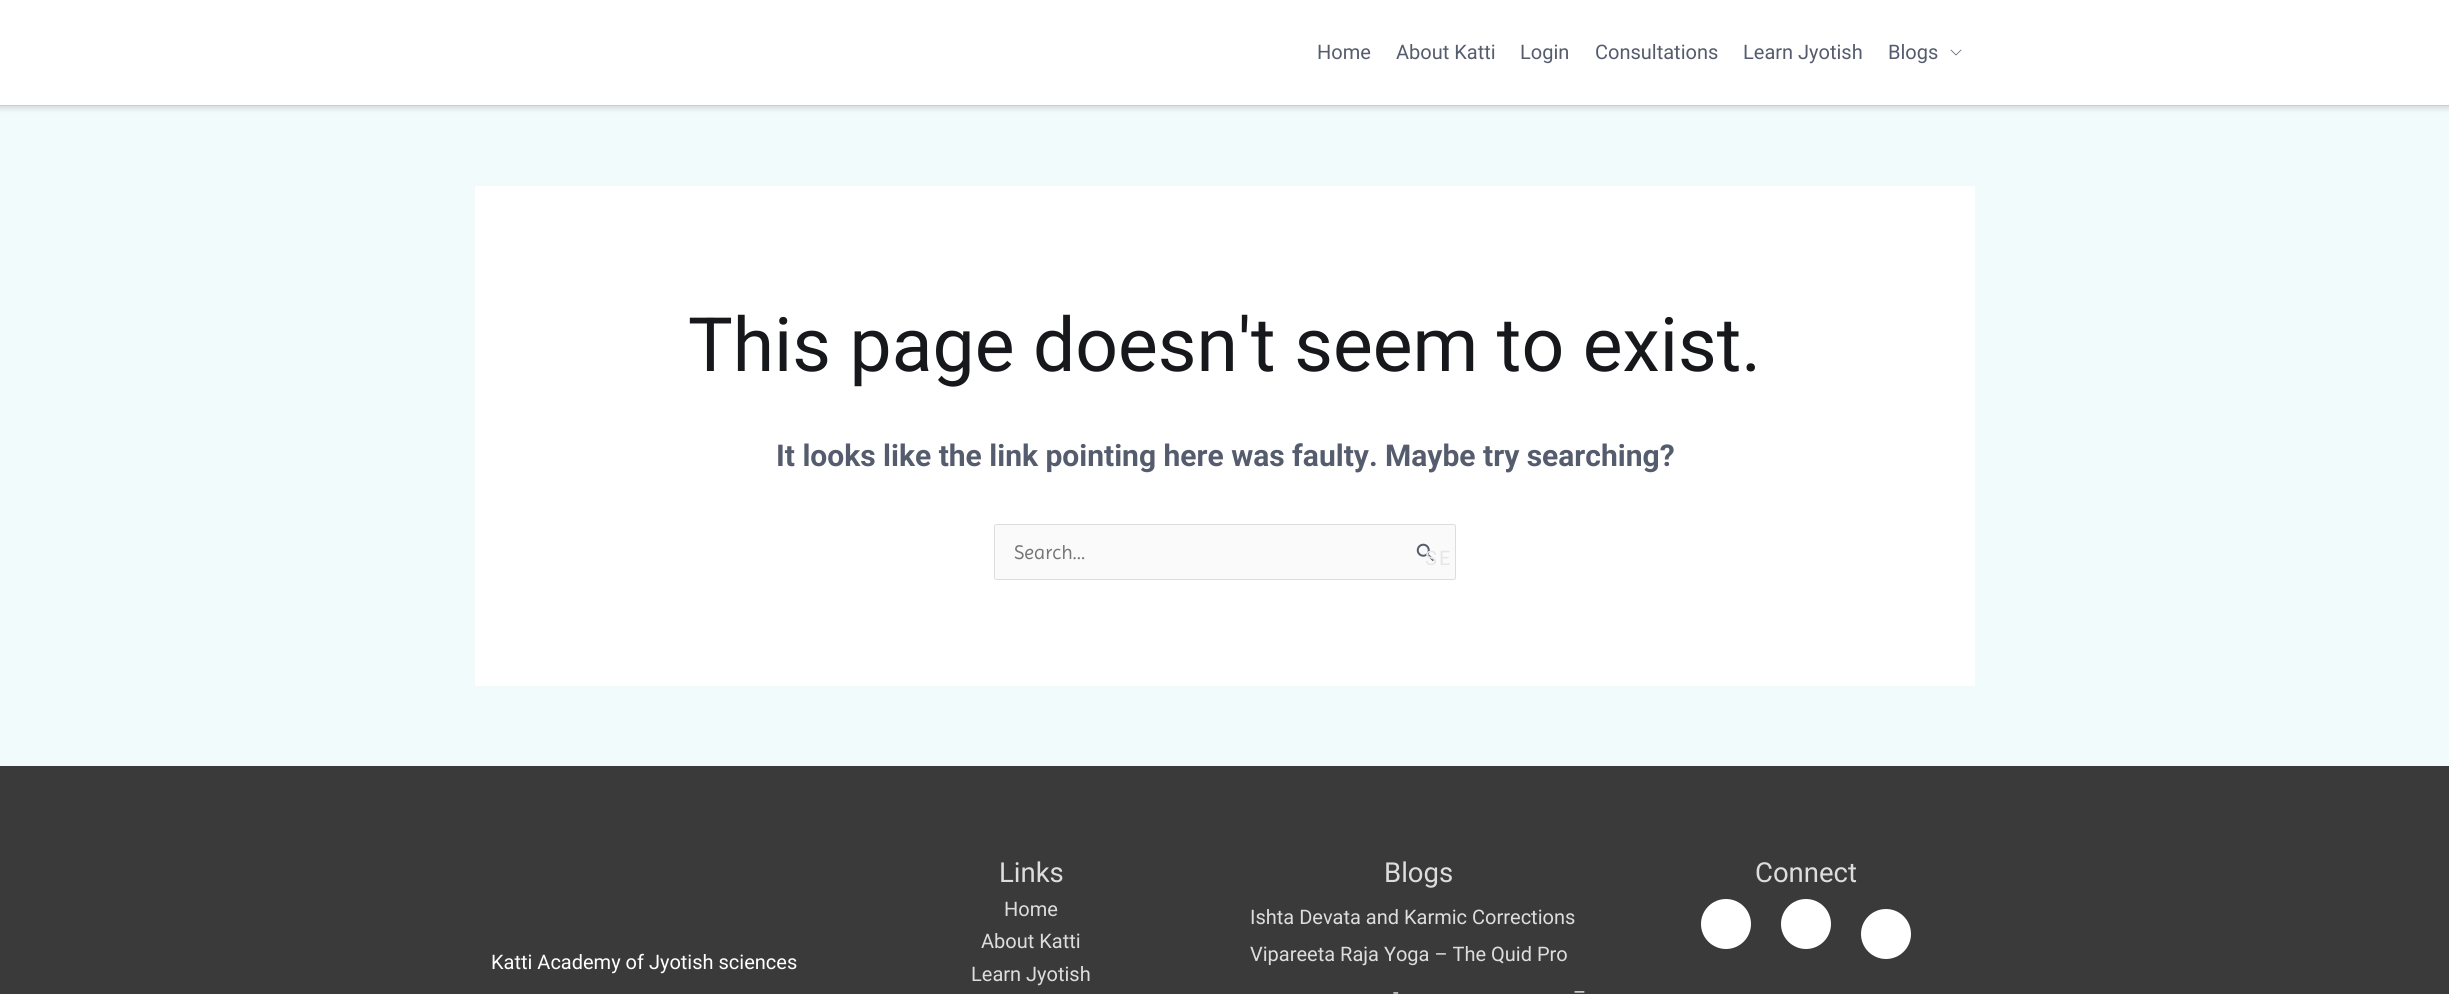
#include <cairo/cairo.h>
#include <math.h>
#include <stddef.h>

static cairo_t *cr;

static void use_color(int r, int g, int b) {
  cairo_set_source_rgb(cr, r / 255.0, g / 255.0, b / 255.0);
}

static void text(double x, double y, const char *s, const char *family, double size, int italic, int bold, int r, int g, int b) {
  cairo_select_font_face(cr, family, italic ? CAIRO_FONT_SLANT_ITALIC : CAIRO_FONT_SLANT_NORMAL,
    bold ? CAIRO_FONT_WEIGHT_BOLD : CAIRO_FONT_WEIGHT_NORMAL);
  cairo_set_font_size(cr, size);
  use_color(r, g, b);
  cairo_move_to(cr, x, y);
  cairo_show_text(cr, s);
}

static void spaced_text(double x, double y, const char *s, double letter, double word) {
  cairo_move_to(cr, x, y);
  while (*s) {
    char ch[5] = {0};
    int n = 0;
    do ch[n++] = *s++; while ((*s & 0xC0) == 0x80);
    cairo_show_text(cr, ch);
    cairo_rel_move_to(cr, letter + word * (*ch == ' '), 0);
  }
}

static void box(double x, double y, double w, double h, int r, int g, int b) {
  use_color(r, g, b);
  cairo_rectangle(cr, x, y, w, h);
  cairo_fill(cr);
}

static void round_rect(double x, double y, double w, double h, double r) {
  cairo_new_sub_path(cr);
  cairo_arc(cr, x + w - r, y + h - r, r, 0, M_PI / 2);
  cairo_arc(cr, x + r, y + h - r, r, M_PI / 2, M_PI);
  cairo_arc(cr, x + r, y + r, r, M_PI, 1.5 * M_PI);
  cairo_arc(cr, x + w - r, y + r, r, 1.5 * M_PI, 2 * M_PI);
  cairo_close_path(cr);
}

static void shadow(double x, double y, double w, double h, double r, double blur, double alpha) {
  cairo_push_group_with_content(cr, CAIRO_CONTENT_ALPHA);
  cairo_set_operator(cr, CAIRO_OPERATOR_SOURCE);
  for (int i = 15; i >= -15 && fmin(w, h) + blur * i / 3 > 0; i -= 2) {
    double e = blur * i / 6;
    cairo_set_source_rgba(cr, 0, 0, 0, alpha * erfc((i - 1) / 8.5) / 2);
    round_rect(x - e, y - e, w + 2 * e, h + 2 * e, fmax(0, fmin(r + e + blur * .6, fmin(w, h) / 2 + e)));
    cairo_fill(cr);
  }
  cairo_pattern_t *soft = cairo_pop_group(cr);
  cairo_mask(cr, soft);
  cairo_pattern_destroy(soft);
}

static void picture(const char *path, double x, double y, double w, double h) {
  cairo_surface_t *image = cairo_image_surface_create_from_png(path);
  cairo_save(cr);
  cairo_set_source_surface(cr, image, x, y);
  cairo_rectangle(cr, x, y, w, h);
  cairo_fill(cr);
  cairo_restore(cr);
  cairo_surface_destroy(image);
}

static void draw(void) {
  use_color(242, 251, 251);
  cairo_paint(cr);
  use_color(0, 0, 0);
  shadow(-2, -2, 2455, 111, 0, 2.5, 0.12);
  box(0, 105, 2449, 1, 204, 204, 204);
  box(0, 0, 2449, 105, 255, 255, 255);
  picture("img_01.png", 1950, 49, 12, 7);
  box(475, 186, 1500, 500, 255, 255, 255);
  use_color(250, 250, 250);
  round_rect(994.5, 524.5, 461, 55, 2);
  cairo_fill_preserve(cr);
  use_color(221, 221, 221);
  cairo_set_line_width(cr, 1);
  cairo_stroke(cr);
  picture("img_02.png", 1416, 543, 19, 19);
  box(0, 766, 2449, 228, 58, 58, 58);
  use_color(255, 255, 255);
  cairo_arc(cr, 1726, 924, 25, 0, 2 * M_PI);
  cairo_fill(cr);
  cairo_arc(cr, 1806, 924, 25, 0, 2 * M_PI);
  cairo_fill(cr);
  cairo_arc(cr, 1886, 934, 25, 0, 2 * M_PI);
  cairo_fill(cr);
  text(1317, 59, "Home", "Roboto", 20, 0, 0, 85, 92, 109);
  text(1396, 59, "About Katti", "Roboto", 20, 0, 0, 85, 92, 109);
  text(1520, 59, "Login", "Roboto", 20, 0, 0, 85, 92, 109);
  text(1595, 59, "Consultations", "Roboto", 20, 0, 0, 85, 92, 109);
  text(1743, 59, "Learn Jyotish", "Roboto", 20, 0, 0, 85, 92, 109);
  text(1888, 59, "Blogs", "Roboto", 20, 0, 0, 85, 92, 109);
  text(688, 371, "This page doesn't seem to exist.", "Roboto", 75, 0, 0, 22, 24, 27);
  text(776, 466, "It looks like the link pointing here was faulty. Maybe try searching?", "Roboto", 30, 0, 1, 85, 92, 109);
  text(1014, 559, "Search...", "Imprima", 20, 0, 0, 117, 117, 117);
  cairo_select_font_face(cr, "Roboto", CAIRO_FONT_SLANT_NORMAL, CAIRO_FONT_WEIGHT_NORMAL);
  use_color(230, 230, 232);
  spaced_text(1425, 565, "SE", 2, 0);
  text(999, 882, "Links", "Roboto", 27.5, 0, 0, 221, 221, 221);
  text(1004, 916, "Home", "Roboto", 20, 0, 0, 221, 221, 221);
  text(981, 948, "About Katti", "Roboto", 20, 0, 0, 221, 221, 221);
  text(971, 981, "Learn Jyotish", "Roboto", 20, 0, 0, 221, 221, 221);
  text(1384, 882, "Blogs", "Roboto", 27.5, 0, 0, 221, 221, 221);
  text(1250, 924, "Ishta Devata and Karmic Corrections", "Roboto", 20, 0, 0, 221, 221, 221);
  text(1250, 961, "Vipareeta Raja Yoga – The Quid Pro", "Roboto", 20, 0, 0, 221, 221, 221);
  text(1393, 999, "-", "Roboto", 20, 0, 0, 221, 221, 221);
  text(1573, 999, "–", "Roboto", 20, 0, 0, 221, 221, 221);
  text(1755, 882, "Connect", "Roboto", 27.5, 0, 0, 221, 221, 221);
  text(491, 969, "Katti Academy of Jyotish sciences", "Roboto", 20, 0, 0, 255, 255, 255);
}

int main(void) {
  cairo_surface_t *surface = cairo_image_surface_create(CAIRO_FORMAT_RGB24, 2449, 994);
  cr = cairo_create(surface);
  cairo_font_options_t *options = cairo_font_options_create();
  cairo_font_options_set_hint_metrics(options, CAIRO_HINT_METRICS_OFF);
  cairo_font_options_set_hint_style(options, CAIRO_HINT_STYLE_NONE);
  cairo_set_font_options(cr, options);
  cairo_set_miter_limit(cr, 4);
  draw();
  cairo_surface_write_to_png(surface, "out.png");
  cairo_font_options_destroy(options);
  cairo_destroy(cr);
  cairo_surface_destroy(surface);
  return 0;
}
